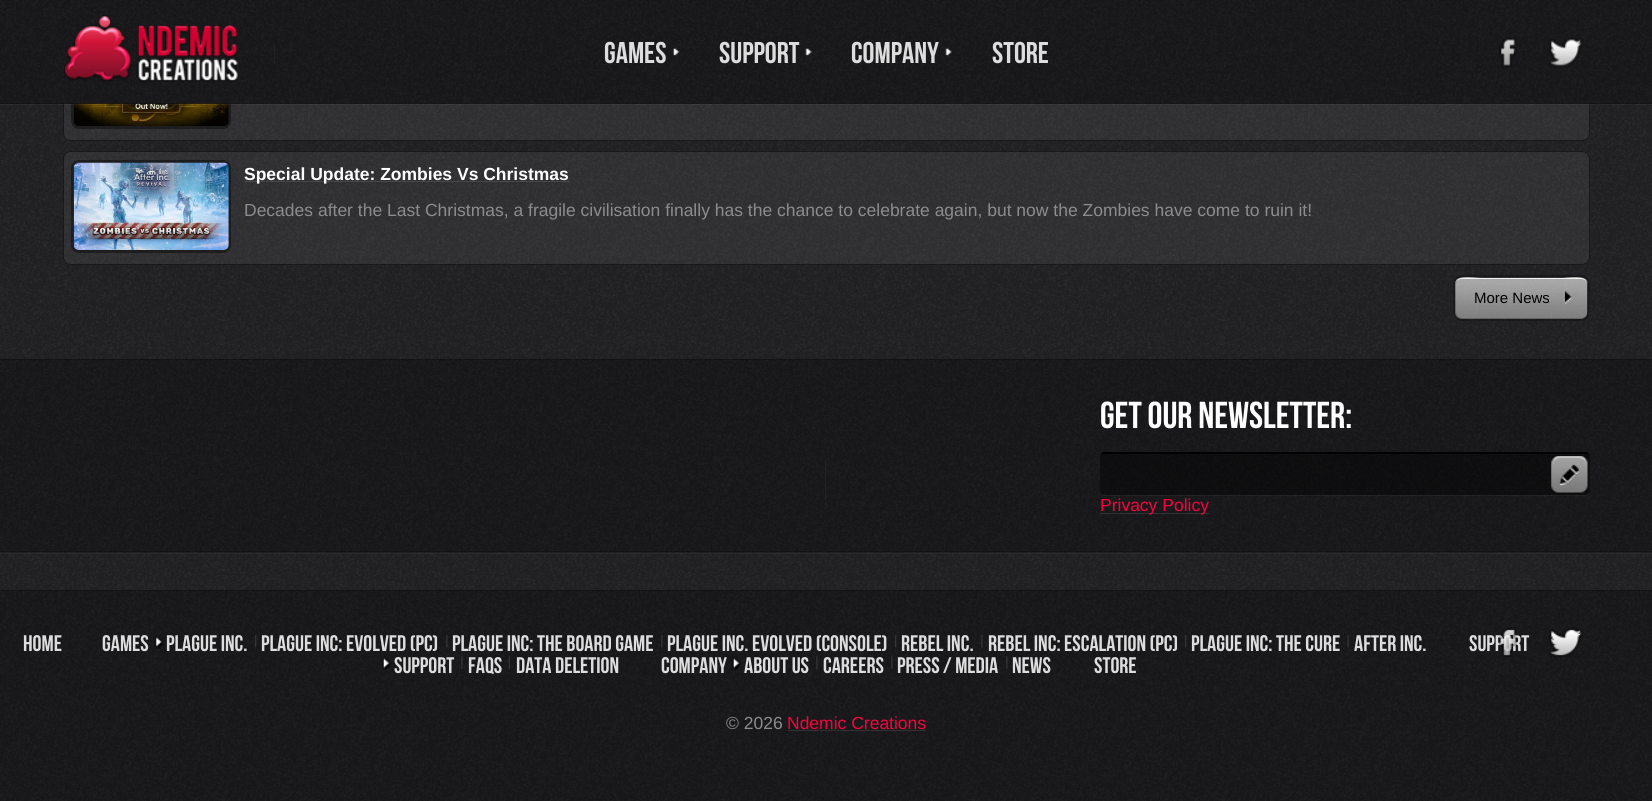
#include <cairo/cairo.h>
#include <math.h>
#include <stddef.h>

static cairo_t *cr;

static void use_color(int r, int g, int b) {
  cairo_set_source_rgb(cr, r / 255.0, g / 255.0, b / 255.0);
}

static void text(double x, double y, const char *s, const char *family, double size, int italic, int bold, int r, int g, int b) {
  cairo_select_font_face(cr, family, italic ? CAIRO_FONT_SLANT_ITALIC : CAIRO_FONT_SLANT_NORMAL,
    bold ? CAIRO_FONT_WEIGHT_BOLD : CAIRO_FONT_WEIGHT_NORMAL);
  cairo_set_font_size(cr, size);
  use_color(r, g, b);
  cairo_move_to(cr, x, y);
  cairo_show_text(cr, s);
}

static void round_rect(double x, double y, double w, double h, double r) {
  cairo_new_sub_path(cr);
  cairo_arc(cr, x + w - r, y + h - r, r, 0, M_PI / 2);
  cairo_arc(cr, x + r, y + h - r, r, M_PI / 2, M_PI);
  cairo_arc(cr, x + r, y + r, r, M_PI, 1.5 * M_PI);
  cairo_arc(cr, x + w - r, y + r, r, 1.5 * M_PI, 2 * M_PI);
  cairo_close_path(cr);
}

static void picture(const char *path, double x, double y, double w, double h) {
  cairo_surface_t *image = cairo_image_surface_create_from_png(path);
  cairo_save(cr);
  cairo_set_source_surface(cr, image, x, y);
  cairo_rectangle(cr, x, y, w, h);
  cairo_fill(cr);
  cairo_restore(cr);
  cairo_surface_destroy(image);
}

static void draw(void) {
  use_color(255, 255, 255);
  cairo_paint(cr);
  picture("img_01.png", 0, 103, 1652, 487);
  cairo_set_source_rgba(cr, 1, 1, 1, 0.07);
  round_rect(63, 28, 1527, 113, 8);
  cairo_fill(cr);
  round_rect(63.5, 28.5, 1526, 112, 7.5);
  cairo_set_source_rgba(cr, 0, 0, 0, 0.5);
  cairo_set_line_width(cr, 1);
  cairo_stroke(cr);
  round_rect(72.5, 37.5, 157, 90, 6.5);
  cairo_set_source_rgba(cr, 0, 0, 0, 0.4);
  cairo_set_line_width(cr, 3);
  cairo_stroke(cr);
  picture("img_09.png", 73, 103, 156, 23);
  cairo_set_source_rgba(cr, 1, 1, 1, 0.04);
  cairo_new_path(cr);
  cairo_move_to(cr, 0, 104);
  cairo_line_to(cr, 0, 105);
  cairo_line_to(cr, 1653, 105);
  cairo_line_to(cr, 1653, 1);
  cairo_line_to(cr, 1652, 1);
  cairo_line_to(cr, 1652, 104);
  cairo_close_path(cr);
  cairo_fill(cr);
  picture("img_02.png", 0, 0, 1652, 104);
  cairo_set_source_rgba(cr, 0, 0, 0, 0.26);
  cairo_rectangle(cr, 0, 103, 1652, 1);
  cairo_fill(cr);
  picture("img_03.png", 64, 15, 211, 67);
  picture("img_04.png", 673, 48, 7, 8);
  picture("img_05.png", 805, 48, 7, 8);
  picture("img_06.png", 945, 48, 7, 8);
  picture("img_07.png", 1499, 37, 18, 31);
  picture("img_08.png", 1549, 37, 34, 31);
  cairo_set_source_rgba(cr, 1, 1, 1, 0.07);
  round_rect(63, 151, 1527, 114, 8);
  cairo_fill(cr);
  round_rect(63.5, 151.5, 1526, 113, 7.5);
  cairo_set_source_rgba(cr, 0, 0, 0, 0.5);
  cairo_set_line_width(cr, 1);
  cairo_stroke(cr);
  round_rect(72.5, 161.5, 157, 90, 6.5);
  cairo_set_source_rgba(cr, 0, 0, 0, 0.4);
  cairo_set_line_width(cr, 3);
  cairo_stroke(cr);
  picture("img_10.png", 73, 162, 156, 88);
  cairo_set_source_rgba(cr, 1, 1, 1, 0.11);
  cairo_rectangle(cr, 244, 181, 325, 1);
  cairo_fill(cr);
  picture("img_11.png", 1455, 277, 133, 42);
  cairo_set_source_rgba(cr, 1, 1, 1, 0.85);
  cairo_new_path(cr);
  cairo_move_to(cr, 1461, 279);
  cairo_line_to(cr, 1581, 279);
  cairo_curve_to(cr, 1585, 279, 1588, 282, 1588, 285);
  cairo_curve_to(cr, 1588, 273, 1567, 278, 1562, 278);
  cairo_line_to(cr, 1481, 278);
  cairo_curve_to(cr, 1476, 278, 1455, 273, 1455, 285);
  cairo_curve_to(cr, 1455, 282, 1458, 279, 1461, 279);
  cairo_close_path(cr);
  cairo_fill(cr);
  round_rect(1454.5, 276.5, 134, 43, 7.5);
  cairo_set_source_rgba(cr, 0, 0, 0, 0.25);
  cairo_stroke(cr);
  picture("img_12.png", 1565, 291, 7, 13);
  cairo_set_source_rgba(cr, 1, 1, 1, 0.04);
  cairo_new_path(cr);
  cairo_move_to(cr, 0, 552);
  cairo_line_to(cr, 0, 554);
  cairo_line_to(cr, 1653, 554);
  cairo_line_to(cr, 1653, 360);
  cairo_line_to(cr, 1652, 360);
  cairo_line_to(cr, 1652, 552);
  cairo_close_path(cr);
  cairo_fill(cr);
  cairo_set_source_rgba(cr, 0, 0, 0, 0.27);
  cairo_rectangle(cr, 0, 359, 1652, 194);
  cairo_fill(cr);
  cairo_set_source_rgba(cr, 0, 0, 0, 0.26);
  cairo_rectangle(cr, 0, 551, 1652, 1);
  cairo_fill(cr);
  cairo_rectangle(cr, 0, 359, 1652, 1);
  cairo_fill(cr);
  cairo_set_source_rgba(cr, 0.204, 0.204, 0.204, 0.32);
  cairo_rectangle(cr, 825, 459, 1, 50);
  cairo_fill(cr);
  cairo_set_source_rgba(cr, 0, 0, 0, 0.44);
  cairo_new_path(cr);
  cairo_move_to(cr, 1105, 454);
  cairo_line_to(cr, 1585, 454);
  cairo_curve_to(cr, 1588, 454, 1590, 455, 1590, 458);
  cairo_line_to(cr, 1590, 491);
  cairo_curve_to(cr, 1590, 493, 1588, 495, 1585, 495);
  cairo_line_to(cr, 1105, 495);
  cairo_curve_to(cr, 1102, 495, 1100, 493, 1100, 491);
  cairo_line_to(cr, 1100, 458);
  cairo_curve_to(cr, 1100, 455, 1102, 454, 1105, 454);
  cairo_close_path(cr);
  cairo_fill(cr);
  use_color(0, 0, 0);
  cairo_new_path(cr);
  cairo_move_to(cr, 1105, 454);
  cairo_curve_to(cr, 1102, 454, 1100, 455, 1100, 458);
  cairo_curve_to(cr, 1100, 456, 1101, 453, 1103, 452);
  cairo_line_to(cr, 1587, 452);
  cairo_curve_to(cr, 1589, 453, 1590, 456, 1590, 458);
  cairo_curve_to(cr, 1590, 455, 1588, 454, 1585, 454);
  cairo_close_path(cr);
  cairo_fill(cr);
  cairo_set_source_rgba(cr, 1, 1, 1, 0.04);
  cairo_new_path(cr);
  cairo_move_to(cr, 1585, 496);
  cairo_curve_to(cr, 1588, 496, 1590, 494, 1590, 491);
  cairo_curve_to(cr, 1590, 493, 1588, 495, 1585, 495);
  cairo_line_to(cr, 1105, 495);
  cairo_curve_to(cr, 1102, 495, 1100, 493, 1100, 491);
  cairo_curve_to(cr, 1100, 494, 1102, 496, 1105, 496);
  cairo_close_path(cr);
  cairo_fill(cr);
  picture("img_13.png", 1551, 456, 37, 37);
  cairo_set_source_rgba(cr, 1, 1, 1, 0.11);
  cairo_rectangle(cr, 1100, 513, 109, 1);
  cairo_fill(cr);
  picture("img_14.png", 0, 590, 1652, 211);
  cairo_set_source_rgba(cr, 0, 0, 0, 0.26);
  cairo_rectangle(cr, 0, 590, 1652, 1);
  cairo_fill(cr);
  picture("img_15.png", 154, 635, 10, 14);
  picture("img_16.png", 255, 635, 2, 13);
  picture("img_17.png", 446, 635, 2, 13);
  picture("img_18.png", 661, 635, 2, 13);
  picture("img_19.png", 895, 635, 2, 13);
  picture("img_20.png", 981, 635, 2, 13);
  picture("img_21.png", 1185, 635, 2, 13);
  picture("img_22.png", 1347, 635, 2, 13);
  picture("img_23.png", 381, 656, 10, 14);
  picture("img_24.png", 461, 656, 2, 13);
  picture("img_25.png", 508, 656, 2, 13);
  picture("img_26.png", 731, 656, 10, 14);
  picture("img_27.png", 816, 656, 2, 13);
  picture("img_28.png", 891, 656, 2, 13);
  picture("img_29.png", 1006, 656, 2, 13);
  picture("img_31.png", 1549, 627, 34, 31);
  cairo_set_source_rgba(cr, 1, 1, 1, 0.11);
  cairo_rectangle(cr, 788, 730, 138, 1);
  cairo_fill(cr);
  text(604, 63, "Games", "Bebas Neue", 30, 0, 0, 221, 221, 221);
  text(719, 63, "Support", "Bebas Neue", 30, 0, 0, 221, 221, 221);
  text(851, 63, "Company", "Bebas Neue", 30, 0, 0, 221, 221, 221);
  text(992, 63, "Store", "Bebas Neue", 30, 0, 0, 221, 221, 221);
  text(244, 180, "Special Update: Zombies Vs Christmas", "Liberation Sans", 17.5, 0, 1, 255, 255, 255);
  text(244, 216, "Decades after the Last Christmas, a fragile civilisation finally has the chance to celebrate again, but now the Zombies have come to ruin it!", "Liberation Sans", 17.5, 0, 0, 140, 140, 140);
  text(1474, 303, "More News", "Liberation Sans", 15, 0, 0, 0, 0, 0);
  text(1100, 428, "GET OUR NEWSLETTER:", "Bebas Neue", 37.5, 0, 0, 255, 255, 255);
  text(1100, 511, "Privacy Policy", "Liberation Sans", 17.5, 0, 0, 251, 0, 60);
  text(23, 651, "Home", "Bebas Neue", 22.5, 0, 0, 221, 221, 221);
  text(102, 651, "Games", "Bebas Neue", 22.5, 0, 0, 221, 221, 221);
  text(166, 651, "Plague Inc.", "Bebas Neue", 22.5, 0, 0, 221, 221, 221);
  text(261, 651, "Plague Inc: Evolved (PC)", "Bebas Neue", 22.5, 0, 0, 221, 221, 221);
  text(452, 651, "Plague Inc: The Board Game", "Bebas Neue", 22.5, 0, 0, 221, 221, 221);
  text(667, 651, "Plague Inc. Evolved (Console)", "Bebas Neue", 22.5, 0, 0, 221, 221, 221);
  text(901, 651, "Rebel Inc.", "Bebas Neue", 22.5, 0, 0, 221, 221, 221);
  text(988, 651, "Rebel Inc: Escalation (PC)", "Bebas Neue", 22.5, 0, 0, 221, 221, 221);
  text(1191, 651, "Plague Inc: The Cure", "Bebas Neue", 22.5, 0, 0, 221, 221, 221);
  text(1354, 651, "After Inc.", "Bebas Neue", 22.5, 0, 0, 221, 221, 221);
  text(1469, 651, "Support", "Bebas Neue", 22.5, 0, 0, 221, 221, 221);
  text(394, 673, "Support", "Bebas Neue", 22.5, 0, 0, 221, 221, 221);
  text(468, 673, "FAQs", "Bebas Neue", 22.5, 0, 0, 221, 221, 221);
  text(516, 673, "Data Deletion", "Bebas Neue", 22.5, 0, 0, 221, 221, 221);
  text(661, 673, "Company", "Bebas Neue", 22.5, 0, 0, 221, 221, 221);
  text(744, 673, "About us", "Bebas Neue", 22.5, 0, 0, 221, 221, 221);
  text(823, 673, "Careers", "Bebas Neue", 22.5, 0, 0, 221, 221, 221);
  text(897, 673, "Press / Media", "Bebas Neue", 22.5, 0, 0, 221, 221, 221);
  text(1012, 673, "News", "Bebas Neue", 22.5, 0, 0, 221, 221, 221);
  text(1094, 673, "Store", "Bebas Neue", 22.5, 0, 0, 221, 221, 221);
  picture("img_30.png", 1498, 627, 19, 31);
  text(726, 729, "© 2026", "Liberation Sans", 17.5, 0, 0, 140, 140, 140);
  text(787, 729, "Ndemic Creations", "Liberation Sans", 17.5, 0, 0, 251, 0, 60);
}

int main(void) {
  cairo_surface_t *surface = cairo_image_surface_create(CAIRO_FORMAT_RGB24, 1652, 801);
  cr = cairo_create(surface);
  cairo_font_options_t *options = cairo_font_options_create();
  cairo_font_options_set_hint_metrics(options, CAIRO_HINT_METRICS_OFF);
  cairo_font_options_set_hint_style(options, CAIRO_HINT_STYLE_NONE);
  cairo_set_font_options(cr, options);
  cairo_set_miter_limit(cr, 4);
  draw();
  cairo_surface_write_to_png(surface, "out.png");
  cairo_font_options_destroy(options);
  cairo_destroy(cr);
  cairo_surface_destroy(surface);
  return 0;
}
